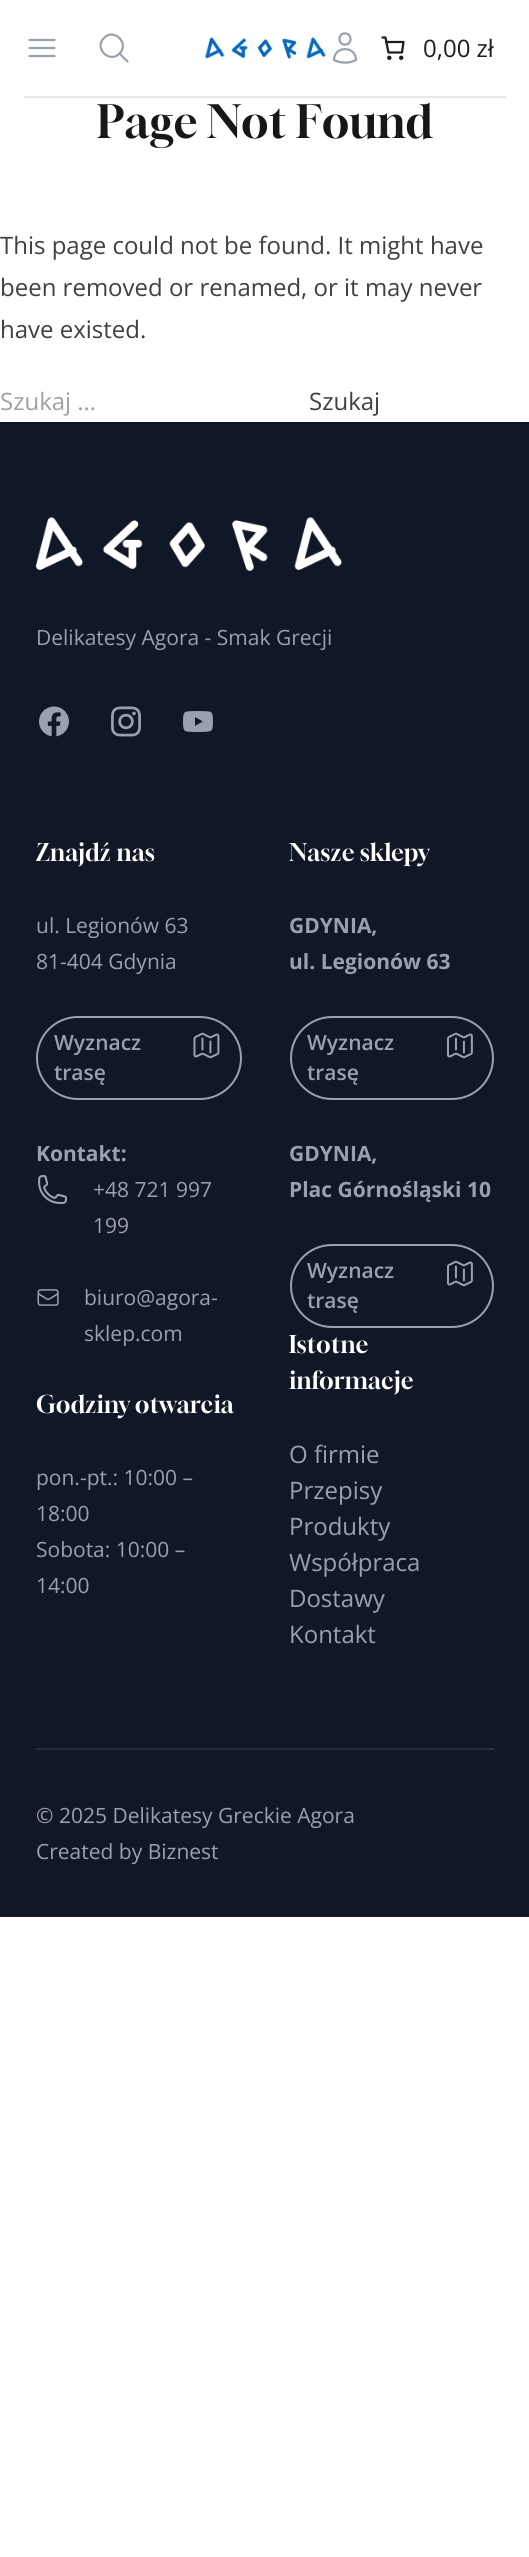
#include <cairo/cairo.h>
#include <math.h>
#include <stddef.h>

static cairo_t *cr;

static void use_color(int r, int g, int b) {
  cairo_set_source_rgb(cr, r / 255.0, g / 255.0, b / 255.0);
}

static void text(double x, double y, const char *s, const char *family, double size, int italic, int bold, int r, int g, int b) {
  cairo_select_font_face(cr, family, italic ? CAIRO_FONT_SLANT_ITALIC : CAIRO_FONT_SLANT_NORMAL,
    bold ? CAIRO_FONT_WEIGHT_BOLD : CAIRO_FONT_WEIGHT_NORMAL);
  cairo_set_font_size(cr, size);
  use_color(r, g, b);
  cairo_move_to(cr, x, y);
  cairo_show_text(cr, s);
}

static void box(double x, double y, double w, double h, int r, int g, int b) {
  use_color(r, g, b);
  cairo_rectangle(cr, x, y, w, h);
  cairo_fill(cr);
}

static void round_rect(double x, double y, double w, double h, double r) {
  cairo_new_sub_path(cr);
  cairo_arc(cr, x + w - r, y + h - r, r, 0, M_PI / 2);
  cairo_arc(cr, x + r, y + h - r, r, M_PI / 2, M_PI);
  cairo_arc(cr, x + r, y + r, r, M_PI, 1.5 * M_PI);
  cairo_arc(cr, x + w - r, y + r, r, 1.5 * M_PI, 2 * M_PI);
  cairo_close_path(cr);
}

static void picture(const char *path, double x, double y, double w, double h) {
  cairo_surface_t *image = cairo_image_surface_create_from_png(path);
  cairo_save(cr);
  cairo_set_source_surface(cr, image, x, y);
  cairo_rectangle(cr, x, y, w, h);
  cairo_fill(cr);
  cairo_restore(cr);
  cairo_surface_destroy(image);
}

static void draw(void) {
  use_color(255, 255, 255);
  cairo_paint(cr);
  box(24, 96, 482, 2, 229, 231, 235);
  cairo_new_path(cr);
  cairo_move_to(cr, 29.5, 40);
  cairo_line_to(cr, 54.5, 40);
  cairo_move_to(cr, 29.5, 48);
  cairo_line_to(cr, 54.5, 48);
  cairo_move_to(cr, 29.5, 56);
  cairo_line_to(cr, 54.5, 56);
  use_color(153, 161, 175);
  cairo_set_line_width(cr, 2.2);
  cairo_set_line_cap(cr, CAIRO_LINE_CAP_ROUND);
  cairo_set_line_join(cr, CAIRO_LINE_JOIN_ROUND);
  cairo_stroke(cr);
  cairo_new_path(cr);
  cairo_move_to(cr, 127.5, 61.5);
  cairo_line_to(cr, 119.5, 53.5);
  cairo_move_to(cr, 119.5, 53.5);
  cairo_curve_to(cr, 130, 43.5, 114, 27.5, 104, 38);
  cairo_curve_to(cr, 93.5, 48, 109.5, 64, 119.5, 53.5);
  cairo_close_path(cr);
  cairo_stroke(cr);
  picture("img_01.png", 205, 37, 121, 22);
  cairo_new_path(cr);
  cairo_move_to(cr, 350.5, 39);
  cairo_curve_to(cr, 350.5, 46.5, 339.5, 46.5, 339.5, 39);
  cairo_curve_to(cr, 339.5, 31.5, 350.5, 31.5, 350.5, 39);
  cairo_close_path(cr);
  cairo_move_to(cr, 334, 60);
  cairo_curve_to(cr, 334, 45.5, 356, 45.5, 356, 60);
  cairo_curve_to(cr, 349, 63.5, 341, 63.5, 334, 60);
  cairo_close_path(cr);
  cairo_stroke(cr);
  picture("img_02.png", 381, 36, 24, 24);
  box(0, 422, 529, 1495, 16, 24, 40);
  picture("img_03.png", 36, 517, 306, 54);
  picture("img_04.png", 39, 706, 30, 31);
  picture("img_05.png", 111, 706, 30, 31);
  picture("img_06.png", 183, 711, 30, 21);
  round_rect(37, 1017, 204, 82, 41);
  use_color(153, 161, 175);
  cairo_set_line_width(cr, 2);
  cairo_set_line_cap(cr, CAIRO_LINE_CAP_BUTT);
  cairo_set_line_join(cr, CAIRO_LINE_JOIN_MITER);
  cairo_stroke(cr);
  picture("img_07.png", 193, 1032, 27, 27);
  picture("img_08.png", 38, 1175, 30, 29);
  picture("img_09.png", 37, 1289, 22, 17);
  round_rect(291, 1017, 202, 82, 41);
  cairo_stroke(cr);
  picture("img_10.png", 447, 1032, 26, 27);
  round_rect(291, 1245, 202, 82, 41);
  cairo_stroke(cr);
  picture("img_10.png", 447, 1260, 26, 27);
  box(36, 1748, 458, 2, 40, 47, 62);
  text(423, 57, "0,00 zł", "Open Sans", 24, 0, 0, 29, 29, 29);
  text(97, 138, "Page Not Found", "Gloock", 45, 0, 0, 23, 23, 23);
  text(0, 254, "This page could not be found. It might have", "Open Sans", 24, 0, 0, 64, 64, 64);
  text(0, 296, "been removed or renamed, or it may never", "Open Sans", 24, 0, 0, 64, 64, 64);
  text(0, 338, "have existed.", "Open Sans", 24, 0, 0, 64, 64, 64);
  text(0, 410, "Szukaj …", "Open Sans", 24, 0, 0, 160, 160, 160);
  text(309, 410, "Szukaj", "Open Sans", 24, 0, 0, 64, 64, 64);
  text(36, 645, "Delikatesy Agora - Smak Grecji", "Open Sans", 21, 0, 0, 153, 161, 175);
  text(36, 861, "Znajdź nas", "Gloock", 24, 0, 0, 255, 255, 255);
  text(36, 933, "ul. Legionów 63", "Open Sans", 21, 0, 0, 153, 161, 175);
  text(36, 969, "81-404 Gdynia", "Open Sans", 21, 0, 0, 153, 161, 175);
  text(54, 1050, "Wyznacz", "Open Sans SemiBold", 21, 0, 0, 153, 161, 175);
  text(54, 1080, "trasę", "Open Sans SemiBold", 21, 0, 0, 153, 161, 175);
  text(36, 1161, "Kontakt:", "Open Sans", 21, 0, 1, 153, 161, 175);
  text(93, 1197, "+48 721 997", "Open Sans", 21, 0, 0, 153, 161, 175);
  text(93, 1233, "199", "Open Sans", 21, 0, 0, 153, 161, 175);
  text(84, 1305, "biuro@agora-", "Open Sans", 21, 0, 0, 153, 161, 175);
  text(84, 1341, "sklep.com", "Open Sans", 21, 0, 0, 153, 161, 175);
  text(36, 1413, "Godziny otwarcia", "Gloock", 24, 0, 0, 255, 255, 255);
  text(36, 1485, "pon.-pt.: 10:00 –", "Open Sans", 21, 0, 0, 153, 161, 175);
  text(36, 1521, "18:00", "Open Sans", 21, 0, 0, 153, 161, 175);
  text(36, 1557, "Sobota: 10:00 –", "Open Sans", 21, 0, 0, 153, 161, 175);
  text(36, 1593, "14:00", "Open Sans", 21, 0, 0, 153, 161, 175);
  text(289, 861, "Nasze sklepy", "Gloock", 24, 0, 0, 255, 255, 255);
  text(289, 933, "GDYNIA,", "Open Sans", 21, 0, 1, 153, 161, 175);
  text(289, 969, "ul. Legionów 63", "Open Sans", 21, 0, 1, 153, 161, 175);
  text(307, 1050, "Wyznacz", "Open Sans SemiBold", 21, 0, 0, 153, 161, 175);
  text(307, 1080, "trasę", "Open Sans SemiBold", 21, 0, 0, 153, 161, 175);
  text(289, 1161, "GDYNIA,", "Open Sans", 21, 0, 1, 153, 161, 175);
  text(289, 1197, "Plac Górnośląski 10", "Open Sans", 21, 0, 1, 153, 161, 175);
  text(307, 1278, "Wyznacz", "Open Sans SemiBold", 21, 0, 0, 153, 161, 175);
  text(307, 1308, "trasę", "Open Sans SemiBold", 21, 0, 0, 153, 161, 175);
  text(289, 1353, "Istotne", "Gloock", 24, 0, 0, 255, 255, 255);
  text(289, 1389, "informacje", "Gloock", 24, 0, 0, 255, 255, 255);
  text(289, 1463, "O firmie", "Open Sans", 24, 0, 0, 153, 161, 175);
  text(289, 1499, "Przepisy", "Open Sans", 24, 0, 0, 153, 161, 175);
  text(289, 1535, "Produkty", "Open Sans", 24, 0, 0, 153, 161, 175);
  text(289, 1571, "Współpraca", "Open Sans", 24, 0, 0, 153, 161, 175);
  text(289, 1607, "Dostawy", "Open Sans", 24, 0, 0, 153, 161, 175);
  text(289, 1643, "Kontakt", "Open Sans", 24, 0, 0, 153, 161, 175);
  text(36, 1823, "© 2025 Delikatesy Greckie Agora", "Open Sans", 21, 0, 0, 153, 161, 175);
  text(36, 1859, "Created by Biznest", "Open Sans", 21, 0, 0, 153, 161, 175);
}

int main(void) {
  cairo_surface_t *surface = cairo_image_surface_create(CAIRO_FORMAT_RGB24, 529, 2557);
  cr = cairo_create(surface);
  cairo_font_options_t *options = cairo_font_options_create();
  cairo_font_options_set_hint_metrics(options, CAIRO_HINT_METRICS_OFF);
  cairo_font_options_set_hint_style(options, CAIRO_HINT_STYLE_NONE);
  cairo_set_font_options(cr, options);
  cairo_set_miter_limit(cr, 4);
  draw();
  cairo_surface_write_to_png(surface, "out.png");
  cairo_font_options_destroy(options);
  cairo_destroy(cr);
  cairo_surface_destroy(surface);
  return 0;
}
